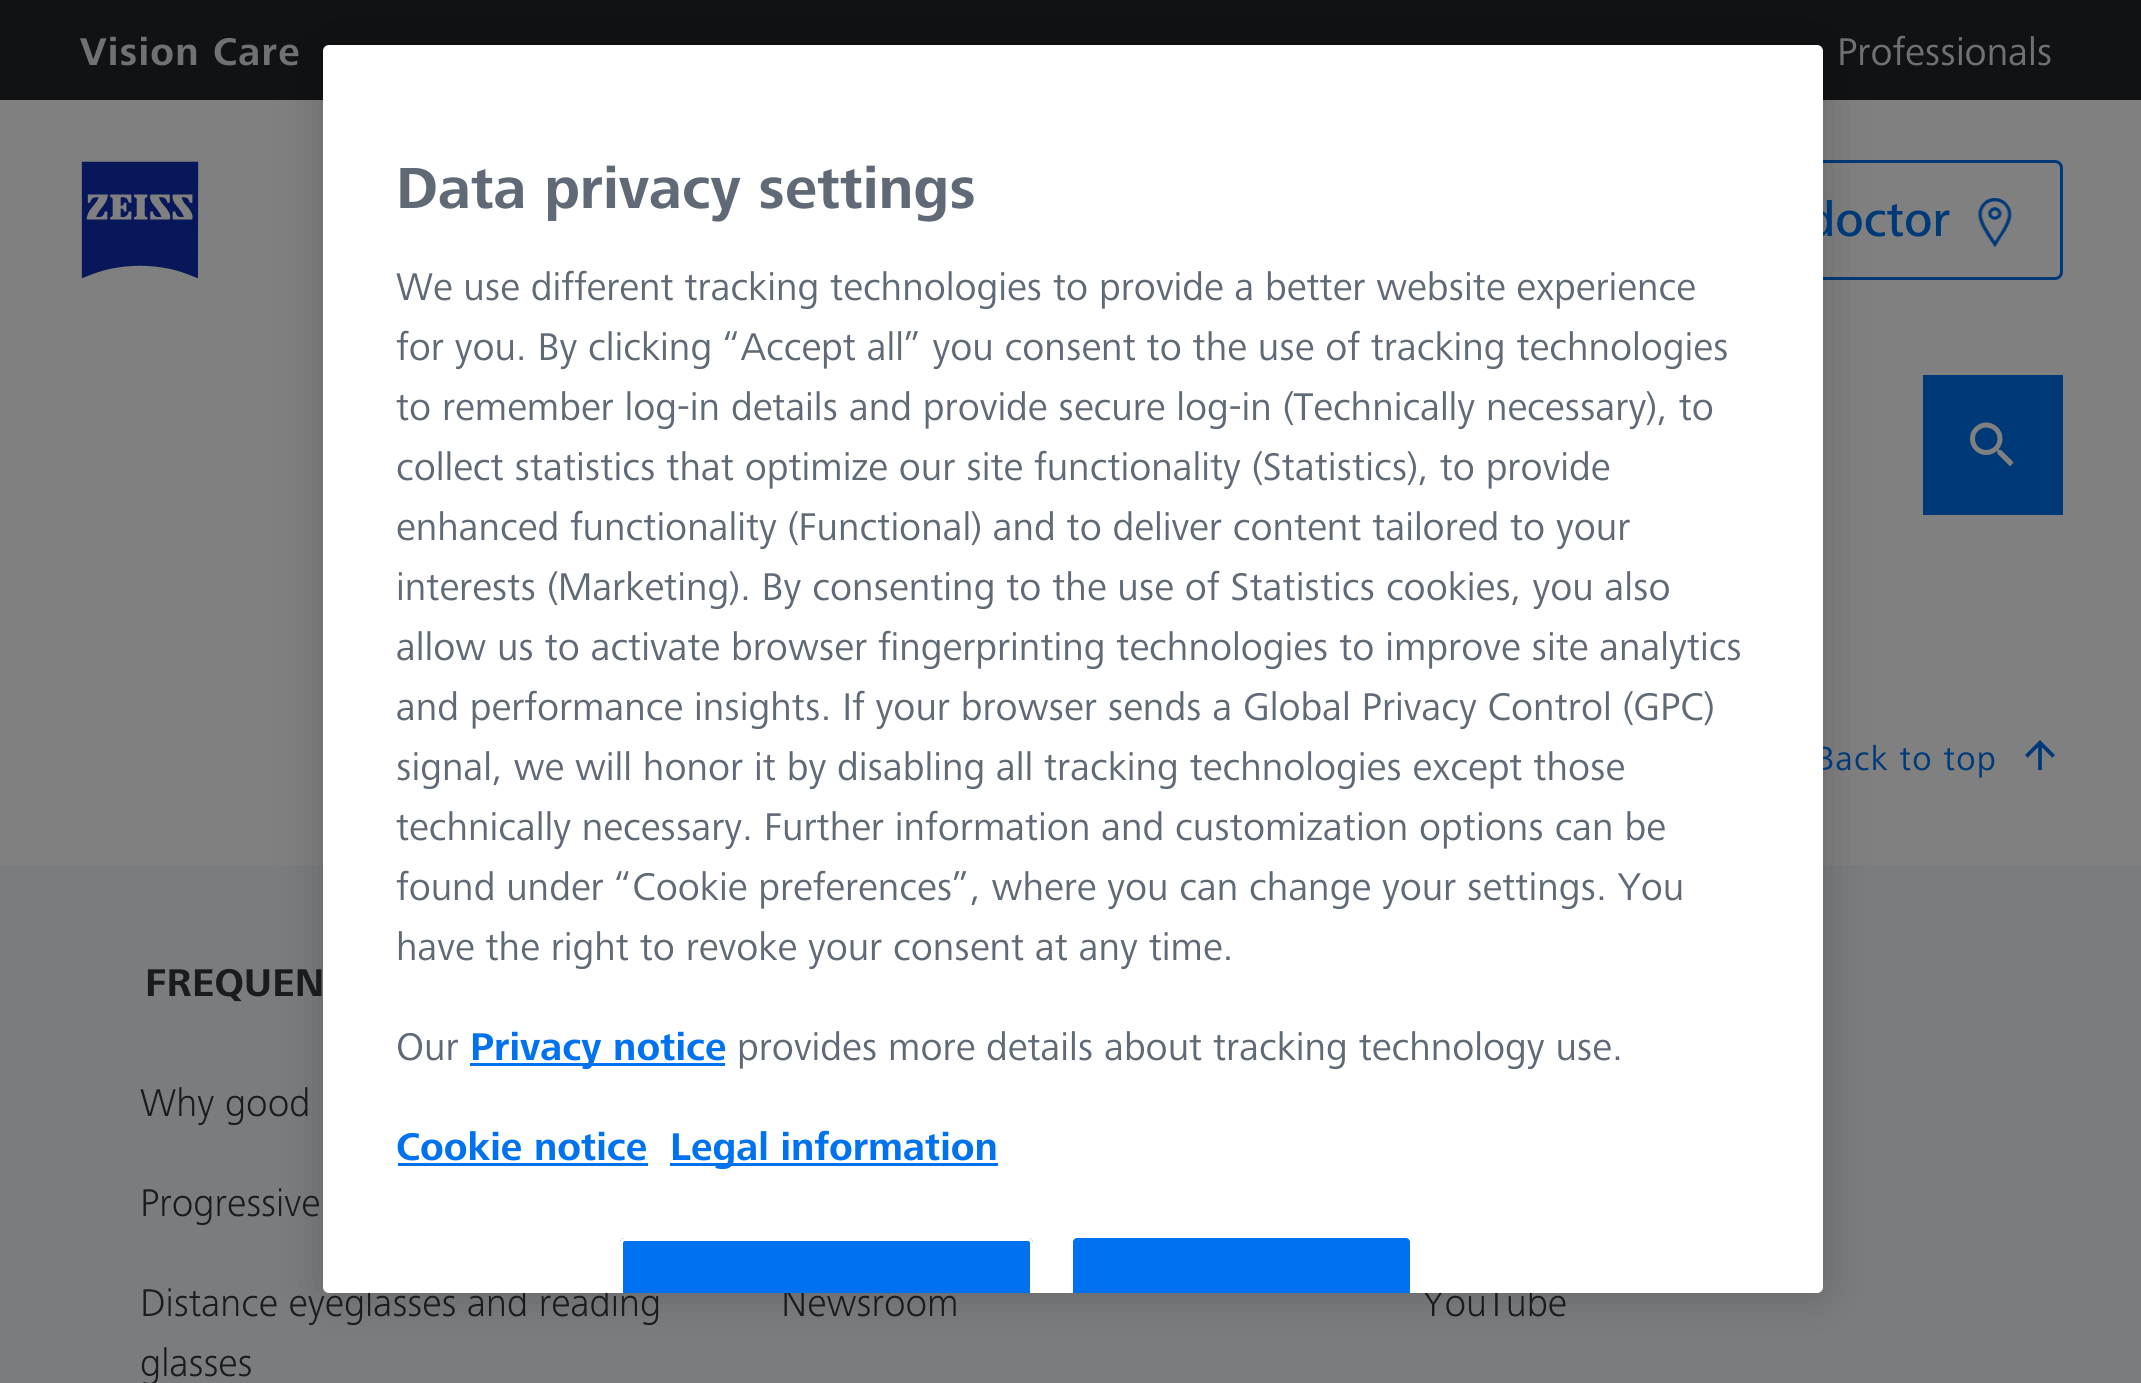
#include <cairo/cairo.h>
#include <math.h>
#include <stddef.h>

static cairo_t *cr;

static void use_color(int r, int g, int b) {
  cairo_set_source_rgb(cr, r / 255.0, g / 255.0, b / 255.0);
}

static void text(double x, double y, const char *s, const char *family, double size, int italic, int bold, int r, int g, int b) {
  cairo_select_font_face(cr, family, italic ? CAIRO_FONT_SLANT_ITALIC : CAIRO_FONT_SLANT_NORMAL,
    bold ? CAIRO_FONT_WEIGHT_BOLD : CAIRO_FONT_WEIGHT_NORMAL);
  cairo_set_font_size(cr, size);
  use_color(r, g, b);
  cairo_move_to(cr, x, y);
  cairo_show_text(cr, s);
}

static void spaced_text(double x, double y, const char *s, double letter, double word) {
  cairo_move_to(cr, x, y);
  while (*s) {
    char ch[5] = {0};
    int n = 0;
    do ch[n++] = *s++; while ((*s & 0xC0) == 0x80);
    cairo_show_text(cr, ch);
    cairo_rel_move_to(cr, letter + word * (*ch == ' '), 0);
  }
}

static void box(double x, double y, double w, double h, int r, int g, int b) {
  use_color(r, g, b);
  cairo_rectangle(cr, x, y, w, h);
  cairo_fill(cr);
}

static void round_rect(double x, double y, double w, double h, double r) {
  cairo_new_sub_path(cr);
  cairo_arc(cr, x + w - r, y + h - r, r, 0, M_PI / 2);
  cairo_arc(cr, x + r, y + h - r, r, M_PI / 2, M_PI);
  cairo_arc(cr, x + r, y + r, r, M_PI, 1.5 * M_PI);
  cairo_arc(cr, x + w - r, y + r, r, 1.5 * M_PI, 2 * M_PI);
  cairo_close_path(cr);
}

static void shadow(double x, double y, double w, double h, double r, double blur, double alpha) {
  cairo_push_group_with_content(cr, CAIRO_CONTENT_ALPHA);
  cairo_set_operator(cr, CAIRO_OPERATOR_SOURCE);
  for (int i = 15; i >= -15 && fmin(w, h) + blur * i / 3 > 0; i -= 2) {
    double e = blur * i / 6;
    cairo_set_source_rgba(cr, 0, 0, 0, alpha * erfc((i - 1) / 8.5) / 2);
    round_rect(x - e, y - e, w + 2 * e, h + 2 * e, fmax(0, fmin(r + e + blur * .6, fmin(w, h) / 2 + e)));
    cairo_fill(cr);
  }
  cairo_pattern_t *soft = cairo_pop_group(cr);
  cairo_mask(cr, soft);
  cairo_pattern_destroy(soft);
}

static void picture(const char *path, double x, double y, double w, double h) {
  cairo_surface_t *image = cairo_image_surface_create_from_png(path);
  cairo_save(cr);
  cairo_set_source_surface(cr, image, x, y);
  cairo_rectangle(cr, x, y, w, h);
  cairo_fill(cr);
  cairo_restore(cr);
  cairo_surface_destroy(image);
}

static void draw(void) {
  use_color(128, 128, 128);
  cairo_paint(cr);
  box(0, 0, 2141, 100, 16, 18, 20);
  picture("img_01.png", 81, 161, 118, 118);
  round_rect(1504.5, 161.5, 557, 117, 6.5);
  use_color(0, 57, 120);
  cairo_set_line_width(cr, 3);
  cairo_stroke(cr);
  picture("img_02.png", 1978, 198, 34, 49);
  box(0, 865, 2141, 518, 123, 124, 125);
  use_color(0, 0, 0);
  shadow(323, 45, 1500, 1248, 6, 22.5, 0.2);
  box(1923, 375, 140, 140, 0, 57, 120);
  picture("img_03.png", 1970, 422, 44, 45);
  picture("img_04.png", 2025, 740, 30, 30);
  cairo_select_font_face(cr, "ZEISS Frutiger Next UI", CAIRO_FONT_SLANT_NORMAL, CAIRO_FONT_WEIGHT_BOLD);
  cairo_set_font_size(cr, 40);
  use_color(110, 114, 117);
  spaced_text(80, 65, "Vision Care", 1.25, 0);
  text(1837, 65, "Professionals", "ZEISS Frutiger Next UI", 40, 0, 0, 110, 114, 117);
  text(1807, 236, "doctor", "ZEISS Frutiger Next UI Medium", 50, 0, 0, 0, 57, 120);
  cairo_select_font_face(cr, "ZEISS Frutiger Next UI", CAIRO_FONT_SLANT_NORMAL, CAIRO_FONT_WEIGHT_NORMAL);
  cairo_set_font_size(cr, 35);
  spaced_text(1815, 770, "Back to top", 1.25, 0);
  cairo_select_font_face(cr, "ZEISS Frutiger Next UI", CAIRO_FONT_SLANT_NORMAL, CAIRO_FONT_WEIGHT_BOLD);
  cairo_set_font_size(cr, 40);
  use_color(25, 28, 31);
  spaced_text(145, 996, "FREQUEN", 0.25, 0);
  text(140, 1116, "Why good", "ZEISS Frutiger Next UI Light", 40, 0, 0, 25, 28, 31);
  text(140, 1216, "Progressive", "ZEISS Frutiger Next UI Light", 40, 0, 0, 25, 28, 31);
  text(140, 1316, "Distance eyeglasses and reading", "ZEISS Frutiger Next UI Light", 40, 0, 0, 25, 28, 31);
  text(140, 1376, "glasses", "ZEISS Frutiger Next UI Light", 40, 0, 0, 25, 28, 31);
  text(781, 1316, "Newsroom", "ZEISS Frutiger Next UI Light", 40, 0, 0, 25, 28, 31);
  text(1422, 1316, "YouTube", "ZEISS Frutiger Next UI Light", 40, 0, 0, 25, 28, 31);
  use_color(255, 255, 255);
  round_rect(323, 45, 1500, 1248, 6);
  cairo_fill(cr);
  use_color(0, 114, 239);
  cairo_new_path(cr);
  cairo_move_to(cr, 625, 1238);
  cairo_line_to(cr, 1028, 1238);
  cairo_curve_to(cr, 1031, 1238, 1033, 1240, 1033, 1243);
  cairo_line_to(cr, 1033, 1293);
  cairo_line_to(cr, 620, 1293);
  cairo_line_to(cr, 620, 1243);
  cairo_curve_to(cr, 620, 1240, 622, 1238, 625, 1238);
  cairo_close_path(cr);
  cairo_fill(cr);
  use_color(255, 255, 255);
  cairo_new_path(cr);
  cairo_move_to(cr, 625, 1238);
  cairo_curve_to(cr, 622, 1238, 620, 1240, 620, 1243);
  cairo_line_to(cr, 620, 1293);
  cairo_line_to(cr, 623, 1293);
  cairo_line_to(cr, 623, 1243);
  cairo_curve_to(cr, 623, 1242, 624, 1241, 625, 1241);
  cairo_line_to(cr, 1028, 1241);
  cairo_curve_to(cr, 1029, 1241, 1030, 1242, 1030, 1243);
  cairo_line_to(cr, 1030, 1293);
  cairo_line_to(cr, 1033, 1293);
  cairo_line_to(cr, 1033, 1243);
  cairo_curve_to(cr, 1033, 1240, 1031, 1238, 1028, 1238);
  cairo_close_path(cr);
  cairo_fill(cr);
  use_color(0, 114, 239);
  cairo_new_path(cr);
  cairo_move_to(cr, 1078, 1238);
  cairo_line_to(cr, 1405, 1238);
  cairo_curve_to(cr, 1408, 1238, 1410, 1240, 1410, 1243);
  cairo_line_to(cr, 1410, 1293);
  cairo_line_to(cr, 1073, 1293);
  cairo_line_to(cr, 1073, 1243);
  cairo_curve_to(cr, 1073, 1240, 1075, 1238, 1078, 1238);
  cairo_close_path(cr);
  cairo_fill(cr);
  cairo_new_path(cr);
  cairo_move_to(cr, 1078, 1238);
  cairo_curve_to(cr, 1075, 1238, 1073, 1240, 1073, 1243);
  cairo_line_to(cr, 1073, 1293);
  cairo_line_to(cr, 1076, 1293);
  cairo_line_to(cr, 1076, 1243);
  cairo_curve_to(cr, 1076, 1242, 1077, 1241, 1078, 1241);
  cairo_line_to(cr, 1405, 1241);
  cairo_curve_to(cr, 1406, 1241, 1407, 1242, 1407, 1243);
  cairo_line_to(cr, 1407, 1293);
  cairo_line_to(cr, 1410, 1293);
  cairo_line_to(cr, 1410, 1243);
  cairo_curve_to(cr, 1410, 1240, 1408, 1238, 1405, 1238);
  cairo_close_path(cr);
  cairo_fill(cr);
  box(670, 1163, 328, 3, 0, 114, 239);
  text(670, 1160, "Legal information", "ZEISS Frutiger Next UI", 40, 0, 1, 0, 114, 239);
  text(396, 1160, "Cookie notice", "ZEISS Frutiger Next UI", 40, 0, 1, 0, 114, 239);
  box(398, 1163, 250, 3, 0, 114, 239);
  text(737, 1060, "provides more details about tracking technology use.", "ZEISS Frutiger Next UI", 40, 0, 0, 96, 106, 118);
  box(470, 1063, 255, 3, 0, 114, 239);
  text(470, 1060, "Privacy notice", "ZEISS Frutiger Next UI", 40, 0, 1, 0, 114, 239);
  text(396, 1060, "Our", "ZEISS Frutiger Next UI", 40, 0, 0, 96, 106, 118);
  text(396, 960, "have the right to revoke your consent at any time.", "ZEISS Frutiger Next UI", 40, 0, 0, 96, 106, 118);
  text(396, 900, "found under “Cookie preferences”, where you can change your settings. You", "ZEISS Frutiger Next UI", 40, 0, 0, 96, 106, 118);
  text(396, 840, "technically necessary. Further information and customization options can be", "ZEISS Frutiger Next UI", 40, 0, 0, 96, 106, 118);
  text(396, 780, "signal, we will honor it by disabling all tracking technologies except those", "ZEISS Frutiger Next UI", 40, 0, 0, 96, 106, 118);
  text(396, 720, "and performance insights. If your browser sends a Global Privacy Control (GPC)", "ZEISS Frutiger Next UI", 40, 0, 0, 96, 106, 118);
  text(396, 660, "allow us to activate browser fingerprinting technologies to improve site analytics", "ZEISS Frutiger Next UI", 40, 0, 0, 96, 106, 118);
  text(396, 600, "interests (Marketing). By consenting to the use of Statistics cookies, you also", "ZEISS Frutiger Next UI", 40, 0, 0, 96, 106, 118);
  text(396, 540, "enhanced functionality (Functional) and to deliver content tailored to your", "ZEISS Frutiger Next UI", 40, 0, 0, 96, 106, 118);
  text(396, 480, "collect statistics that optimize our site functionality (Statistics), to provide", "ZEISS Frutiger Next UI", 40, 0, 0, 96, 106, 118);
  text(396, 420, "to remember log-in details and provide secure log-in (Technically necessary), to", "ZEISS Frutiger Next UI", 40, 0, 0, 96, 106, 118);
  text(396, 360, "for you. By clicking “Accept all” you consent to the use of tracking technologies", "ZEISS Frutiger Next UI", 40, 0, 0, 96, 106, 118);
  text(396, 300, "We use different tracking technologies to provide a better website experience", "ZEISS Frutiger Next UI", 40, 0, 0, 96, 106, 118);
  text(396, 208, "Data privacy settings", "ZEISS Frutiger Next UI", 60, 0, 1, 96, 106, 118);
}

int main(void) {
  cairo_surface_t *surface = cairo_image_surface_create(CAIRO_FORMAT_RGB24, 2141, 1383);
  cr = cairo_create(surface);
  cairo_font_options_t *options = cairo_font_options_create();
  cairo_font_options_set_hint_metrics(options, CAIRO_HINT_METRICS_OFF);
  cairo_font_options_set_hint_style(options, CAIRO_HINT_STYLE_NONE);
  cairo_set_font_options(cr, options);
  cairo_set_miter_limit(cr, 4);
  draw();
  cairo_surface_write_to_png(surface, "out.png");
  cairo_font_options_destroy(options);
  cairo_destroy(cr);
  cairo_surface_destroy(surface);
  return 0;
}
